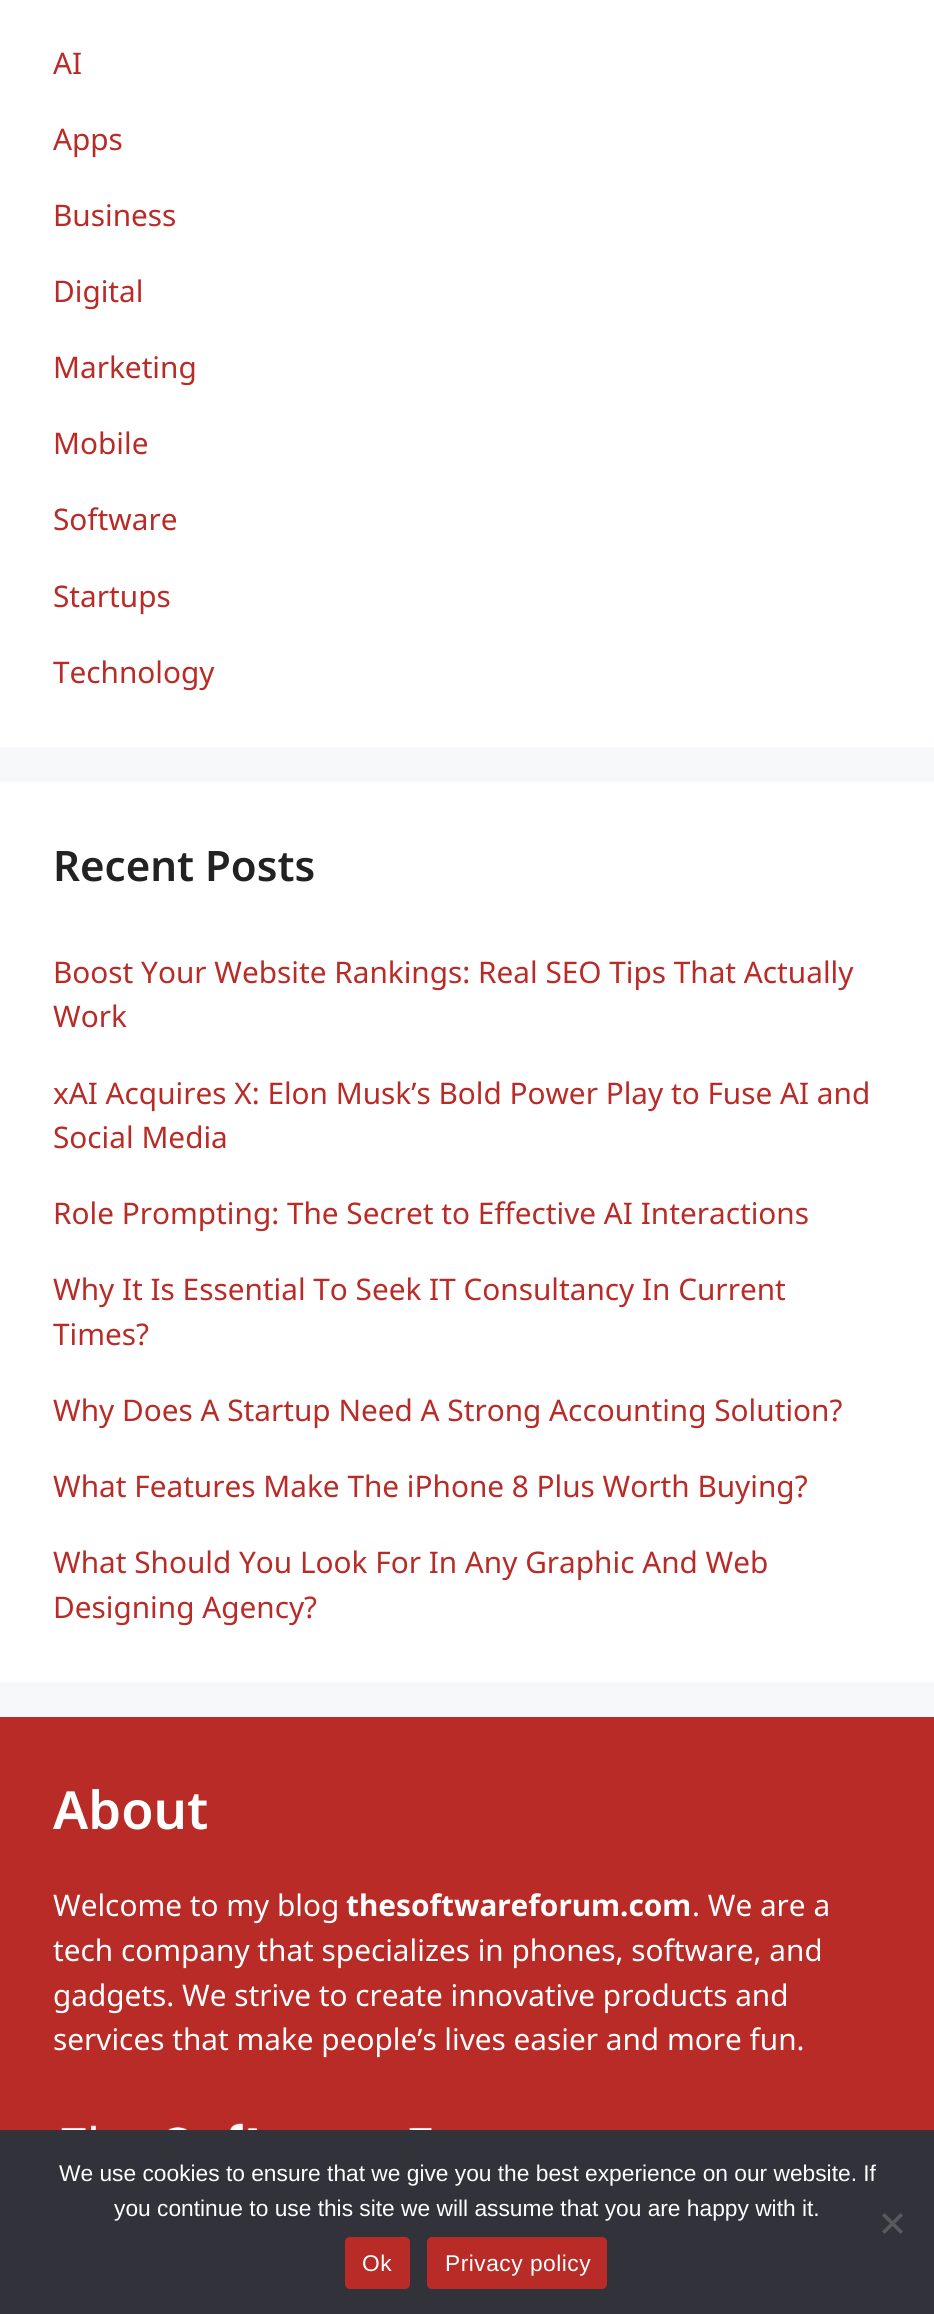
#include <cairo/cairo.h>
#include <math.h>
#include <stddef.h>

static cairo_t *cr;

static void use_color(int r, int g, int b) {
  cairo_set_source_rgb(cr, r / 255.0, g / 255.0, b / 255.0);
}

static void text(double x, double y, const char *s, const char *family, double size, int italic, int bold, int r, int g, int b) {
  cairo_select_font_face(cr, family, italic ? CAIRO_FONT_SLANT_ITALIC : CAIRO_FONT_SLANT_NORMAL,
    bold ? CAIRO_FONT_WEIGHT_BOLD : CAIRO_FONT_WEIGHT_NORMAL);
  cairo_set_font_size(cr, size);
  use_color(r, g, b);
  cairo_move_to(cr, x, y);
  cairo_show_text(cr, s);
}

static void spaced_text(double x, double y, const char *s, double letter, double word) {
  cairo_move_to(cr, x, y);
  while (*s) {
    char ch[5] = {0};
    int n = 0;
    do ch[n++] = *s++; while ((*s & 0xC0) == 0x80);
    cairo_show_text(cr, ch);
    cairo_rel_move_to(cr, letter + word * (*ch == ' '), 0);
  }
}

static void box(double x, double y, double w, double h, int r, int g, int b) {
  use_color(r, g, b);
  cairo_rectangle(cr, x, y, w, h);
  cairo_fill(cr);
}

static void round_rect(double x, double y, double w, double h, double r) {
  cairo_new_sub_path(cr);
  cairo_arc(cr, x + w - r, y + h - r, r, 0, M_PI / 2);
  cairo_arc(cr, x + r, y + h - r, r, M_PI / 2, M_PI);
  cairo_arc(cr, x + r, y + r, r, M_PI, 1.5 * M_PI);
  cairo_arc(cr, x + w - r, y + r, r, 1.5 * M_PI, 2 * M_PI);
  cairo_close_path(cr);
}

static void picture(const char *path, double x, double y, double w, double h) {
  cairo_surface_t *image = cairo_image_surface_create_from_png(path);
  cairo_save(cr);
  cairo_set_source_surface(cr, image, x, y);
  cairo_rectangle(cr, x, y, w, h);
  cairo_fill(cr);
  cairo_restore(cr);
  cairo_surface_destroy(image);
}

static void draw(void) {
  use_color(247, 248, 249);
  cairo_paint(cr);
  box(0, 0, 934, 747, 255, 255, 255);
  box(0, 782, 934, 900, 255, 255, 255);
  box(0, 1717, 934, 413, 185, 43, 39);
  picture("img_01.png", 61, 2123, 371, 7);
  box(0, 2130, 934, 184, 50, 50, 58);
  use_color(89, 89, 93);
  cairo_new_path(cr);
  cairo_move_to(cr, 900.5, 2213);
  cairo_line_to(cr, 903, 2215.5);
  cairo_line_to(cr, 884.5, 2234);
  cairo_line_to(cr, 882, 2231.5);
  cairo_close_path(cr);
  cairo_fill(cr);
  cairo_new_path(cr);
  cairo_move_to(cr, 882, 2215.5);
  cairo_line_to(cr, 884.5, 2213);
  cairo_line_to(cr, 903, 2231.5);
  cairo_line_to(cr, 900.5, 2234);
  cairo_close_path(cr);
  cairo_fill(cr);
  use_color(185, 43, 39);
  round_rect(345, 2237, 65, 52, 5);
  cairo_fill(cr);
  round_rect(427, 2237, 180, 52, 5);
  cairo_fill(cr);
  text(53, 74, "AI", "Noto Sans", 29.75, 0, 0, 185, 43, 39);
  text(53, 150, "Apps", "Noto Sans", 29.75, 0, 0, 185, 43, 39);
  text(53, 226, "Business", "Noto Sans", 29.75, 0, 0, 185, 43, 39);
  text(53, 302, "Digital", "Noto Sans", 29.75, 0, 0, 185, 43, 39);
  text(53, 378, "Marketing", "Noto Sans", 29.75, 0, 0, 185, 43, 39);
  text(53, 454, "Mobile", "Noto Sans", 29.75, 0, 0, 185, 43, 39);
  text(53, 530, "Software", "Noto Sans", 29.75, 0, 0, 185, 43, 39);
  text(53, 607, "Startups", "Noto Sans", 29.75, 0, 0, 185, 43, 39);
  text(53, 683, "Technology", "Noto Sans", 29.75, 0, 0, 185, 43, 39);
  text(53, 881, "Recent Posts", "Noto Sans SemiBold", 42, 0, 0, 34, 34, 34);
  text(53, 983, "Boost Your Website Rankings: Real SEO Tips That Actually", "Noto Sans", 29.75, 0, 0, 185, 43, 39);
  text(53, 1027, "Work", "Noto Sans", 29.75, 0, 0, 185, 43, 39);
  text(53, 1104, "xAI Acquires X: Elon Musk’s Bold Power Play to Fuse AI and", "Noto Sans", 29.75, 0, 0, 185, 43, 39);
  text(53, 1148, "Social Media", "Noto Sans", 29.75, 0, 0, 185, 43, 39);
  text(53, 1224, "Role Prompting: The Secret to Effective AI Interactions", "Noto Sans", 29.75, 0, 0, 185, 43, 39);
  text(53, 1300, "Why It Is Essential To Seek IT Consultancy In Current", "Noto Sans", 29.75, 0, 0, 185, 43, 39);
  text(53, 1345, "Times?", "Noto Sans", 29.75, 0, 0, 185, 43, 39);
  text(53, 1421, "Why Does A Startup Need A Strong Accounting Solution?", "Noto Sans", 29.75, 0, 0, 185, 43, 39);
  text(53, 1497, "What Features Make The iPhone 8 Plus Worth Buying?", "Noto Sans", 29.75, 0, 0, 185, 43, 39);
  text(53, 1573, "What Should You Look For In Any Graphic And Web", "Noto Sans", 29.75, 0, 0, 185, 43, 39);
  text(53, 1618, "Designing Agency?", "Noto Sans", 29.75, 0, 0, 185, 43, 39);
  text(53, 1829, "About", "Noto Sans SemiBold", 52.5, 0, 0, 255, 255, 255);
  text(53, 1916, "Welcome to my blog", "Noto Sans", 29.75, 0, 0, 255, 255, 255);
  text(346, 1916, "thesoftwareforum.com", "Noto Sans", 29.75, 0, 1, 255, 255, 255);
  text(692, 1916, ". We are a", "Noto Sans", 29.75, 0, 0, 255, 255, 255);
  text(53, 1961, "tech company that specializes in phones, software, and", "Noto Sans", 29.75, 0, 0, 255, 255, 255);
  text(53, 2006, "gadgets. We strive to create innovative products and", "Noto Sans", 29.75, 0, 0, 255, 255, 255);
  text(53, 2050, "services that make people’s lives easier and more fun.", "Noto Sans", 29.75, 0, 0, 255, 255, 255);
  text(59, 2181, "We use cookies to ensure that we give you the best experience on our website. If", "Liberation Sans", 22.75, 0, 0, 255, 255, 255);
  text(114, 2216, "you continue to use this site we will assume that you are happy with it.", "Liberation Sans", 22.75, 0, 0, 255, 255, 255);
  spaced_text(362, 2271, "Ok", 0.5, 0);
  spaced_text(445, 2271, "Privacy policy", 0.5, 0);
}

int main(void) {
  cairo_surface_t *surface = cairo_image_surface_create(CAIRO_FORMAT_RGB24, 934, 2314);
  cr = cairo_create(surface);
  cairo_font_options_t *options = cairo_font_options_create();
  cairo_font_options_set_hint_metrics(options, CAIRO_HINT_METRICS_OFF);
  cairo_font_options_set_hint_style(options, CAIRO_HINT_STYLE_NONE);
  cairo_set_font_options(cr, options);
  cairo_set_miter_limit(cr, 4);
  draw();
  cairo_surface_write_to_png(surface, "out.png");
  cairo_font_options_destroy(options);
  cairo_destroy(cr);
  cairo_surface_destroy(surface);
  return 0;
}
